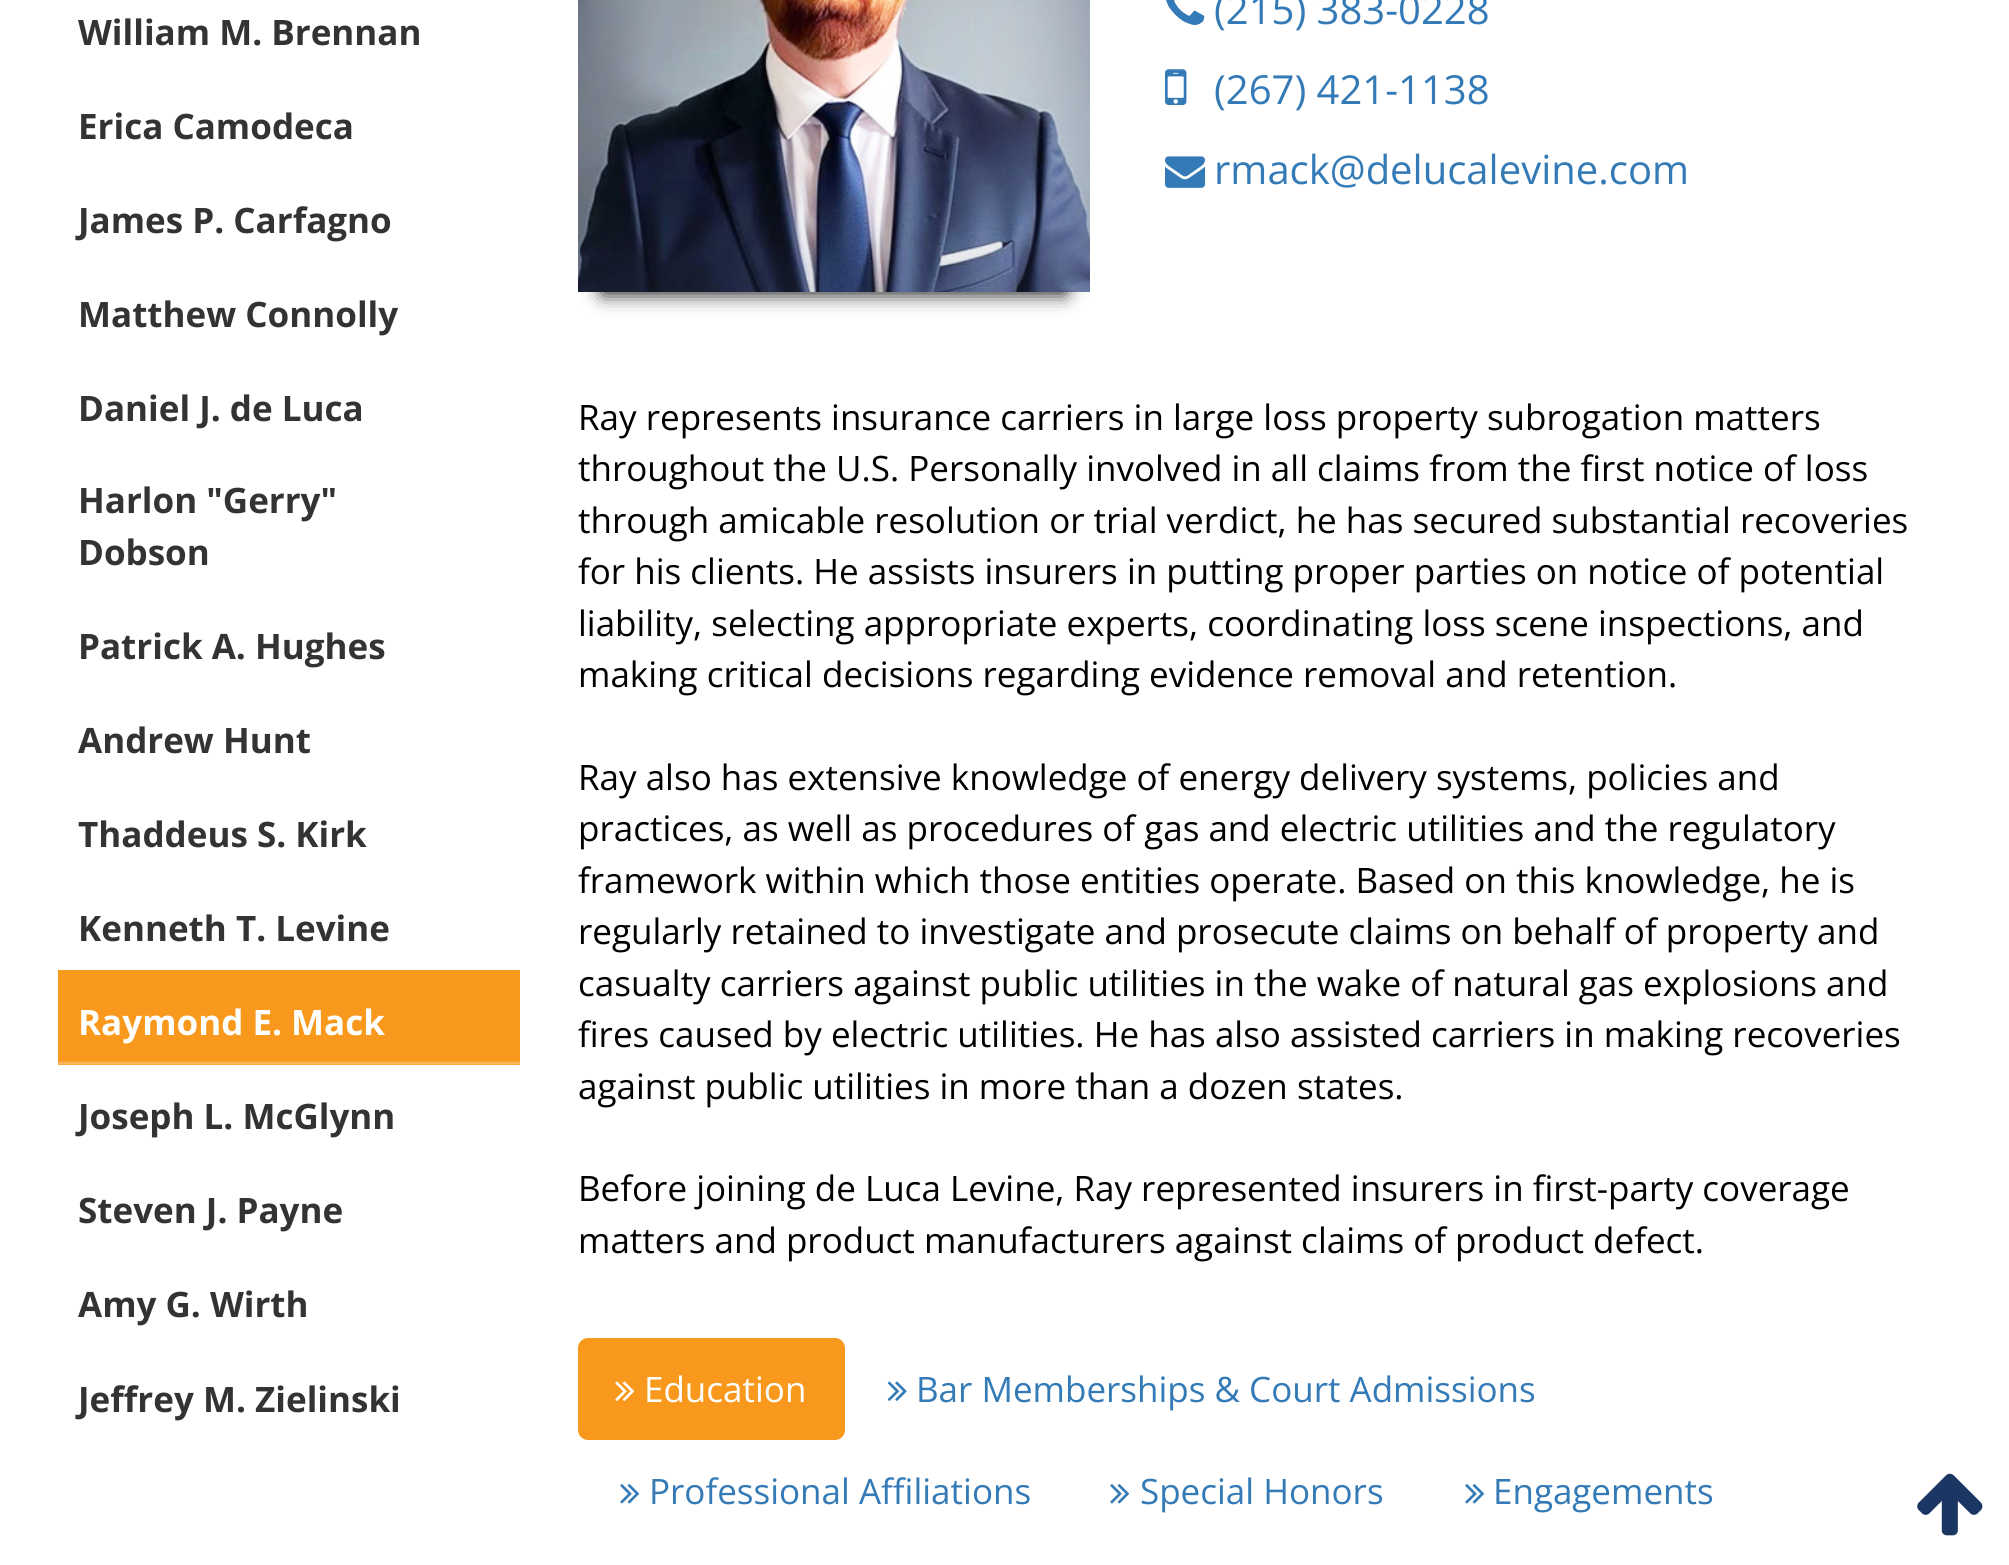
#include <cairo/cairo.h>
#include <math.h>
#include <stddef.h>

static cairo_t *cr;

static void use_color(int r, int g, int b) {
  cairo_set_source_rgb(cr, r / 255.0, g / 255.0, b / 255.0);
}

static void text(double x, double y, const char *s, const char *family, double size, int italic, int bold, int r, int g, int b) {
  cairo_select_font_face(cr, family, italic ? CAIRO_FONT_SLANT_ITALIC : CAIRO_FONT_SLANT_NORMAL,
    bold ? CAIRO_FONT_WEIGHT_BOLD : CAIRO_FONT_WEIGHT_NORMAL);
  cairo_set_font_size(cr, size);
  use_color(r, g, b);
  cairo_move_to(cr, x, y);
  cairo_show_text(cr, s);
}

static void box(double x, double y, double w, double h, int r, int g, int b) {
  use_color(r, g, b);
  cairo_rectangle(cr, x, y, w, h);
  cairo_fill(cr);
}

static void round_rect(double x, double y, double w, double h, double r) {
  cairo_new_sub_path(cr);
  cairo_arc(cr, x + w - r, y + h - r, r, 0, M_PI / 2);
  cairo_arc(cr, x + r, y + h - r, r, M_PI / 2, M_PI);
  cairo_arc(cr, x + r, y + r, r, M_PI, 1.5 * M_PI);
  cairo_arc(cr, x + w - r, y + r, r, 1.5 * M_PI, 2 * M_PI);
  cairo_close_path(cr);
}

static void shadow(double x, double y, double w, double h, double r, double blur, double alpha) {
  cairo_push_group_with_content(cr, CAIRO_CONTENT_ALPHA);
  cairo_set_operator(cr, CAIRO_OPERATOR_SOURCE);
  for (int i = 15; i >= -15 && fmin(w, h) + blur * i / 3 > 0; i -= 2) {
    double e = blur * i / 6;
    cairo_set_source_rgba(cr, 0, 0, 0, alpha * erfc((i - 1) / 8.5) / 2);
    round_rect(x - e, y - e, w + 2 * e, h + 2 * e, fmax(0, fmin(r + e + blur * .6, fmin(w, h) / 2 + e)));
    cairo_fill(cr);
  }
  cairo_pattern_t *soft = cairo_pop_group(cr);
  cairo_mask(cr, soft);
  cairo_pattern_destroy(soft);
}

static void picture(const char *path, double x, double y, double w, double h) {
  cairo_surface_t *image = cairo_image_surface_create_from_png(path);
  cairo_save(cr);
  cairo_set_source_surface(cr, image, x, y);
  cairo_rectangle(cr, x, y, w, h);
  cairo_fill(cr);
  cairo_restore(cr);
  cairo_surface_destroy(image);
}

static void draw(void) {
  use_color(255, 255, 255);
  cairo_paint(cr);
  box(58, 970, 462, 95, 248, 153, 29);
  picture("img_01.png", 58, 1061, 462, 4);
  use_color(0, 0, 0);
  shadow(603, -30, 462, 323, 0, 10, 1);
  picture("img_02.png", 578, 0, 512, 292);
  picture("img_03.png", 1166, 0, 39, 25);
  picture("img_04.png", 1165, 69, 22, 36);
  picture("img_05.png", 1165, 156, 40, 32);
  use_color(248, 153, 29);
  round_rect(578, 1338, 267, 102, 10);
  cairo_fill(cr);
  picture("img_06.png", 615, 1381, 20, 20);
  picture("img_07.png", 887, 1381, 20, 20);
  picture("img_08.png", 620, 1484, 20, 20);
  picture("img_08.png", 1110, 1484, 20, 20);
  picture("img_08.png", 1465, 1484, 20, 20);
  picture("img_09.png", 1917, 1473, 66, 63);
  text(78, 45, "William M. Brennan", "Open Sans", 35, 0, 1, 51, 51, 51);
  text(78, 139, "Erica Camodeca", "Open Sans", 35, 0, 1, 51, 51, 51);
  text(78, 233, "James P. Carfagno", "Open Sans", 35, 0, 1, 51, 51, 51);
  text(78, 327, "Matthew Connolly", "Open Sans", 35, 0, 1, 51, 51, 51);
  text(78, 421, "Daniel J. de Luca", "Open Sans", 35, 0, 1, 51, 51, 51);
  text(78, 513, "Harlon \"Gerry\"", "Open Sans", 35, 0, 1, 51, 51, 51);
  text(78, 565, "Dobson", "Open Sans", 35, 0, 1, 51, 51, 51);
  text(78, 659, "Patrick A. Hughes", "Open Sans", 35, 0, 1, 51, 51, 51);
  text(78, 753, "Andrew Hunt", "Open Sans", 35, 0, 1, 51, 51, 51);
  text(78, 847, "Thaddeus S. Kirk", "Open Sans", 35, 0, 1, 51, 51, 51);
  text(78, 941, "Kenneth T. Levine", "Open Sans", 35, 0, 1, 51, 51, 51);
  text(78, 1035, "Raymond E. Mack", "Open Sans", 35, 0, 1, 255, 255, 255);
  text(78, 1129, "Joseph L. McGlynn", "Open Sans", 35, 0, 1, 51, 51, 51);
  text(78, 1223, "Steven J. Payne", "Open Sans", 35, 0, 1, 51, 51, 51);
  text(78, 1317, "Amy G. Wirth", "Open Sans", 35, 0, 1, 51, 51, 51);
  text(78, 1412, "Jeffrey M. Zielinski", "Open Sans", 35, 0, 1, 51, 51, 51);
  text(1214, 24, "(215) 383-0228", "Open Sans", 40, 0, 0, 51, 122, 183);
  text(1214, 104, "(267) 421-1138", "Open Sans", 40, 0, 0, 51, 122, 183);
  text(1214, 184, "rmack@delucalevine.com", "Open Sans", 40, 0, 0, 51, 122, 183);
  text(578, 430, "Ray represents insurance carriers in large loss property subrogation matters", "Open Sans", 35, 0, 0, 0, 0, 0);
  text(578, 481, "throughout the U.S. Personally involved in all claims from the first notice of loss", "Open Sans", 35, 0, 0, 0, 0, 0);
  text(578, 533, "through amicable resolution or trial verdict, he has secured substantial recoveries", "Open Sans", 35, 0, 0, 0, 0, 0);
  text(578, 584, "for his clients. He assists insurers in putting proper parties on notice of potential", "Open Sans", 35, 0, 0, 0, 0, 0);
  text(578, 636, "liability, selecting appropriate experts, coordinating loss scene inspections, and", "Open Sans", 35, 0, 0, 0, 0, 0);
  text(578, 687, "making critical decisions regarding evidence removal and retention.", "Open Sans", 35, 0, 0, 0, 0, 0);
  text(578, 790, "Ray also has extensive knowledge of energy delivery systems, policies and", "Open Sans", 35, 0, 0, 0, 0, 0);
  text(578, 841, "practices, as well as procedures of gas and electric utilities and the regulatory", "Open Sans", 35, 0, 0, 0, 0, 0);
  text(578, 893, "framework within which those entities operate. Based on this knowledge, he is", "Open Sans", 35, 0, 0, 0, 0, 0);
  text(578, 944, "regularly retained to investigate and prosecute claims on behalf of property and", "Open Sans", 35, 0, 0, 0, 0, 0);
  text(578, 996, "casualty carriers against public utilities in the wake of natural gas explosions and", "Open Sans", 35, 0, 0, 0, 0, 0);
  text(578, 1047, "fires caused by electric utilities. He has also assisted carriers in making recoveries", "Open Sans", 35, 0, 0, 0, 0, 0);
  text(578, 1099, "against public utilities in more than a dozen states.", "Open Sans", 35, 0, 0, 0, 0, 0);
  text(578, 1201, "Before joining de Luca Levine, Ray represented insurers in first-party coverage", "Open Sans", 35, 0, 0, 0, 0, 0);
  text(578, 1253, "matters and product manufacturers against claims of product defect.", "Open Sans", 35, 0, 0, 0, 0, 0);
  text(644, 1402, "Education", "Open Sans", 35, 0, 0, 255, 255, 255);
  text(916, 1402, "Bar Memberships & Court Admissions", "Open Sans", 35, 0, 0, 51, 122, 183);
  text(649, 1504, "Professional Affiliations", "Open Sans", 35, 0, 0, 51, 122, 183);
  text(1140, 1504, "Special Honors", "Open Sans", 35, 0, 0, 51, 122, 183);
  text(1493, 1504, "Engagements", "Open Sans", 35, 0, 0, 51, 122, 183);
}

int main(void) {
  cairo_surface_t *surface = cairo_image_surface_create(CAIRO_FORMAT_RGB24, 2009, 1565);
  cr = cairo_create(surface);
  cairo_font_options_t *options = cairo_font_options_create();
  cairo_font_options_set_hint_metrics(options, CAIRO_HINT_METRICS_OFF);
  cairo_font_options_set_hint_style(options, CAIRO_HINT_STYLE_NONE);
  cairo_set_font_options(cr, options);
  cairo_set_miter_limit(cr, 4);
  draw();
  cairo_surface_write_to_png(surface, "out.png");
  cairo_font_options_destroy(options);
  cairo_destroy(cr);
  cairo_surface_destroy(surface);
  return 0;
}
